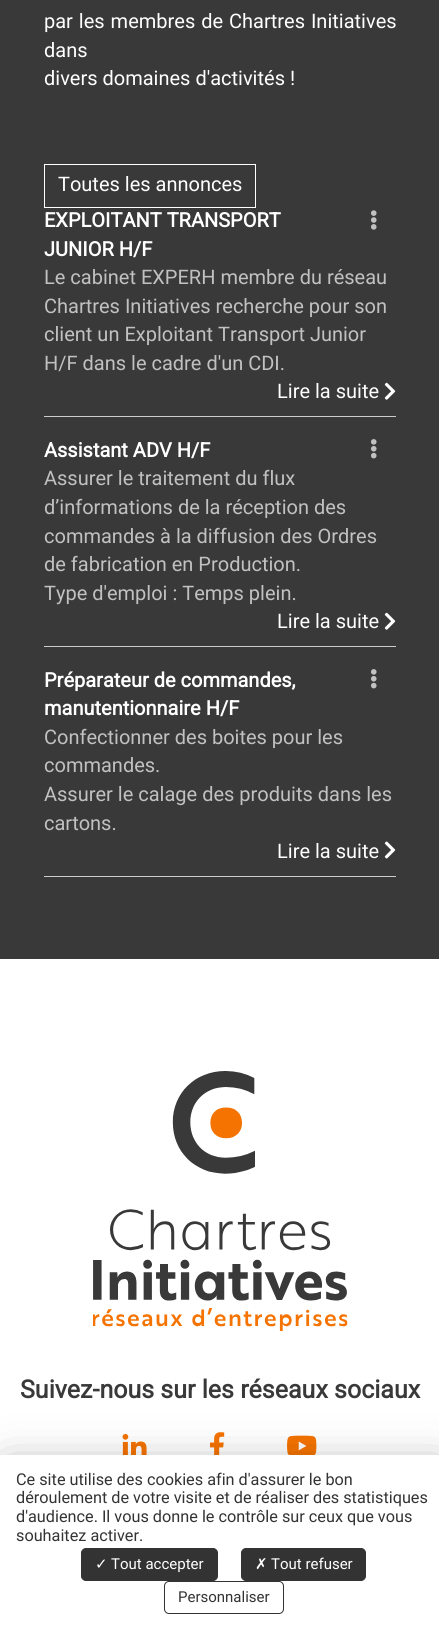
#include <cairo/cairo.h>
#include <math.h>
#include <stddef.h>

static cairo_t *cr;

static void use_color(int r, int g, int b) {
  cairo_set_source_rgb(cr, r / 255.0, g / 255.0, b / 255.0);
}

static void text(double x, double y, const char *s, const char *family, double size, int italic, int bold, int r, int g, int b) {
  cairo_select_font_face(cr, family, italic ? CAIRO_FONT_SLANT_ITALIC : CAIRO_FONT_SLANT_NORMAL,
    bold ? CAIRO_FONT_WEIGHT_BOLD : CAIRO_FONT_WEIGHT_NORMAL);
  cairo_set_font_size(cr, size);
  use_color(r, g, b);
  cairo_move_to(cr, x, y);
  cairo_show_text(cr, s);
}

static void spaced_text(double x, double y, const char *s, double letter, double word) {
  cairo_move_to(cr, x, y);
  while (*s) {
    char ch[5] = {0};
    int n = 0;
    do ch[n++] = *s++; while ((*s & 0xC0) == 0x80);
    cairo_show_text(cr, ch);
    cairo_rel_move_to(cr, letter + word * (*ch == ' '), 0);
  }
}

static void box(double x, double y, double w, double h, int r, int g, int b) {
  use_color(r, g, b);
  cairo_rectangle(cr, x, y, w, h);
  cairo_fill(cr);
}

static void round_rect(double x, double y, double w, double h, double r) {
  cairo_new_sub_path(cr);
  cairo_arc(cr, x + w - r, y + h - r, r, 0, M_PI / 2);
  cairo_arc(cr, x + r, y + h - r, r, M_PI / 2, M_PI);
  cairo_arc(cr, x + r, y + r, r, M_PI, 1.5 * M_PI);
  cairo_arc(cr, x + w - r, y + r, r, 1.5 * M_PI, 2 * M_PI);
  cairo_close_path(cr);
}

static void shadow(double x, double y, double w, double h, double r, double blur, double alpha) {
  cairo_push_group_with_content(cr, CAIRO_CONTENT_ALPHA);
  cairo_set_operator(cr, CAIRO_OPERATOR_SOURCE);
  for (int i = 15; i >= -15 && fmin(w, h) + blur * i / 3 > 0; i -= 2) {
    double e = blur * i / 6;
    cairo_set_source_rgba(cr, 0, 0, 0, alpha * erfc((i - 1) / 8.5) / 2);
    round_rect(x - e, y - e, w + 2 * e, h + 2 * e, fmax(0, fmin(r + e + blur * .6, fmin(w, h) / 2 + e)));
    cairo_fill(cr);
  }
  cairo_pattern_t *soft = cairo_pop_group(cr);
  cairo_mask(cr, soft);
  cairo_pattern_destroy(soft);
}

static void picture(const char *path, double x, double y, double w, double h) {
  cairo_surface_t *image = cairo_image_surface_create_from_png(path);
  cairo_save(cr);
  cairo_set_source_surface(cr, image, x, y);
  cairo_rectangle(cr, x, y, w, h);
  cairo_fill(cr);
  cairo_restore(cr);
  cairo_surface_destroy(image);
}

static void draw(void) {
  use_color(255, 255, 255);
  cairo_paint(cr);
  box(0, 0, 439, 959, 57, 57, 57);
  cairo_rectangle(cr, 44.5, 164.5, 211, 43);
  use_color(255, 255, 255);
  cairo_set_line_width(cr, 1);
  cairo_stroke(cr);
  box(44, 416, 352, 1, 204, 204, 204);
  picture("img_01.png", 371, 210, 6, 20);
  picture("img_02.png", 384, 382, 12, 18);
  box(44, 646, 352, 1, 204, 204, 204);
  picture("img_03.png", 371, 439, 6, 20);
  picture("img_02.png", 384, 612, 12, 18);
  box(44, 876, 352, 1, 204, 204, 204);
  picture("img_03.png", 371, 669, 6, 20);
  picture("img_04.png", 384, 841, 12, 18);
  picture("img_05.png", 93, 1071, 255, 260);
  picture("img_06.png", 122, 1433, 25, 22);
  picture("img_07.png", 210, 1432, 15, 23);
  picture("img_08.png", 287, 1435, 30, 20);
  use_color(0, 0, 0);
  shadow(8, 1470, 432, 156, 0, 22.5, 0.4);
  box(0, 1455, 439, 171, 255, 255, 255);
  use_color(51, 51, 51);
  round_rect(81.5, 1548.5, 136, 32, 4.5);
  cairo_fill_preserve(cr);
  cairo_stroke(cr);
  round_rect(241.5, 1548.5, 124, 32, 4.5);
  cairo_fill_preserve(cr);
  cairo_stroke(cr);
  round_rect(164.5, 1581.5, 119, 32, 4.5);
  cairo_stroke(cr);
  cairo_select_font_face(cr, "Roboto", CAIRO_FONT_SLANT_NORMAL, CAIRO_FONT_WEIGHT_NORMAL);
  cairo_set_font_size(cr, 20);
  use_color(255, 255, 255);
  spaced_text(44, 28, "par les membres de Chartres Initiatives", 0, 1);
  text(44, 57, "dans", "Roboto", 20, 0, 0, 255, 255, 255);
  text(44, 85, "divers domaines d'activités !", "Roboto", 20, 0, 0, 255, 255, 255);
  text(58, 191, "Toutes les annonces", "Roboto", 20, 0, 0, 255, 255, 255);
  text(44, 227, "EXPLOITANT TRANSPORT", "Roboto", 20, 0, 1, 255, 255, 255);
  text(44, 256, "JUNIOR H/F", "Roboto", 20, 0, 1, 255, 255, 255);
  text(44, 284, "Le cabinet EXPERH membre du réseau", "Roboto", 20, 0, 0, 193, 193, 193);
  text(44, 313, "Chartres Initiatives recherche pour son", "Roboto", 20, 0, 0, 193, 193, 193);
  text(44, 341, "client un Exploitant Transport Junior", "Roboto", 20, 0, 0, 193, 193, 193);
  text(44, 370, "H/F dans le cadre d'un CDI.", "Roboto", 20, 0, 0, 193, 193, 193);
  text(277, 398, "Lire la suite", "Roboto", 20, 0, 0, 255, 255, 255);
  text(44, 457, "Assistant ADV H/F", "Roboto", 20, 0, 1, 255, 255, 255);
  text(44, 485, "Assurer le traitement du flux", "Roboto", 20, 0, 0, 193, 193, 193);
  text(44, 514, "d’informations de la réception des", "Roboto", 20, 0, 0, 193, 193, 193);
  text(44, 543, "commandes à la diffusion des Ordres", "Roboto", 20, 0, 0, 193, 193, 193);
  text(44, 571, "de fabrication en Production.", "Roboto", 20, 0, 0, 193, 193, 193);
  text(44, 600, "Type d'emploi : Temps plein.", "Roboto", 20, 0, 0, 193, 193, 193);
  text(277, 628, "Lire la suite", "Roboto", 20, 0, 0, 255, 255, 255);
  text(44, 687, "Préparateur de commandes,", "Roboto", 20, 0, 1, 255, 255, 255);
  text(44, 715, "manutentionnaire H/F", "Roboto", 20, 0, 1, 255, 255, 255);
  text(44, 744, "Confectionner des boites pour les", "Roboto", 20, 0, 0, 193, 193, 193);
  text(44, 772, "commandes.", "Roboto", 20, 0, 0, 193, 193, 193);
  text(44, 801, "Assurer le calage des produits dans les", "Roboto", 20, 0, 0, 193, 193, 193);
  text(44, 830, "cartons.", "Roboto", 20, 0, 0, 193, 193, 193);
  text(277, 858, "Lire la suite", "Roboto", 20, 0, 0, 255, 255, 255);
  text(20, 1398, "Suivez-nous sur les réseaux sociaux", "Roboto", 25, 0, 1, 57, 57, 57);
  text(16, 1485, "Ce site utilise des cookies afin d'assurer le bon", "Roboto", 16.25, 0, 0, 51, 51, 51);
  text(16, 1503, "déroulement de votre visite et de réaliser des statistiques", "Roboto", 16.25, 0, 0, 51, 51, 51);
  text(16, 1522, "d'audience. Il vous donne le contrôle sur ceux que vous", "Roboto", 16.25, 0, 0, 51, 51, 51);
  text(16, 1541, "souhaitez activer.", "Roboto", 16.25, 0, 0, 51, 51, 51);
  text(95, 1569, "✓", "DejaVu Sans", 15, 0, 0, 255, 255, 255);
  text(111, 1569, "Tout accepter", "Roboto", 15, 0, 0, 255, 255, 255);
  text(255, 1569, "✗", "DejaVu Sans", 15, 0, 0, 255, 255, 255);
  text(271, 1569, "Tout refuser", "Roboto", 15, 0, 0, 255, 255, 255);
  text(178, 1602, "Personnaliser", "Roboto", 15, 0, 0, 51, 51, 51);
}

int main(void) {
  cairo_surface_t *surface = cairo_image_surface_create(CAIRO_FORMAT_RGB24, 439, 1626);
  cr = cairo_create(surface);
  cairo_font_options_t *options = cairo_font_options_create();
  cairo_font_options_set_hint_metrics(options, CAIRO_HINT_METRICS_OFF);
  cairo_font_options_set_hint_style(options, CAIRO_HINT_STYLE_NONE);
  cairo_set_font_options(cr, options);
  cairo_set_miter_limit(cr, 4);
  draw();
  cairo_surface_write_to_png(surface, "out.png");
  cairo_font_options_destroy(options);
  cairo_destroy(cr);
  cairo_surface_destroy(surface);
  return 0;
}
